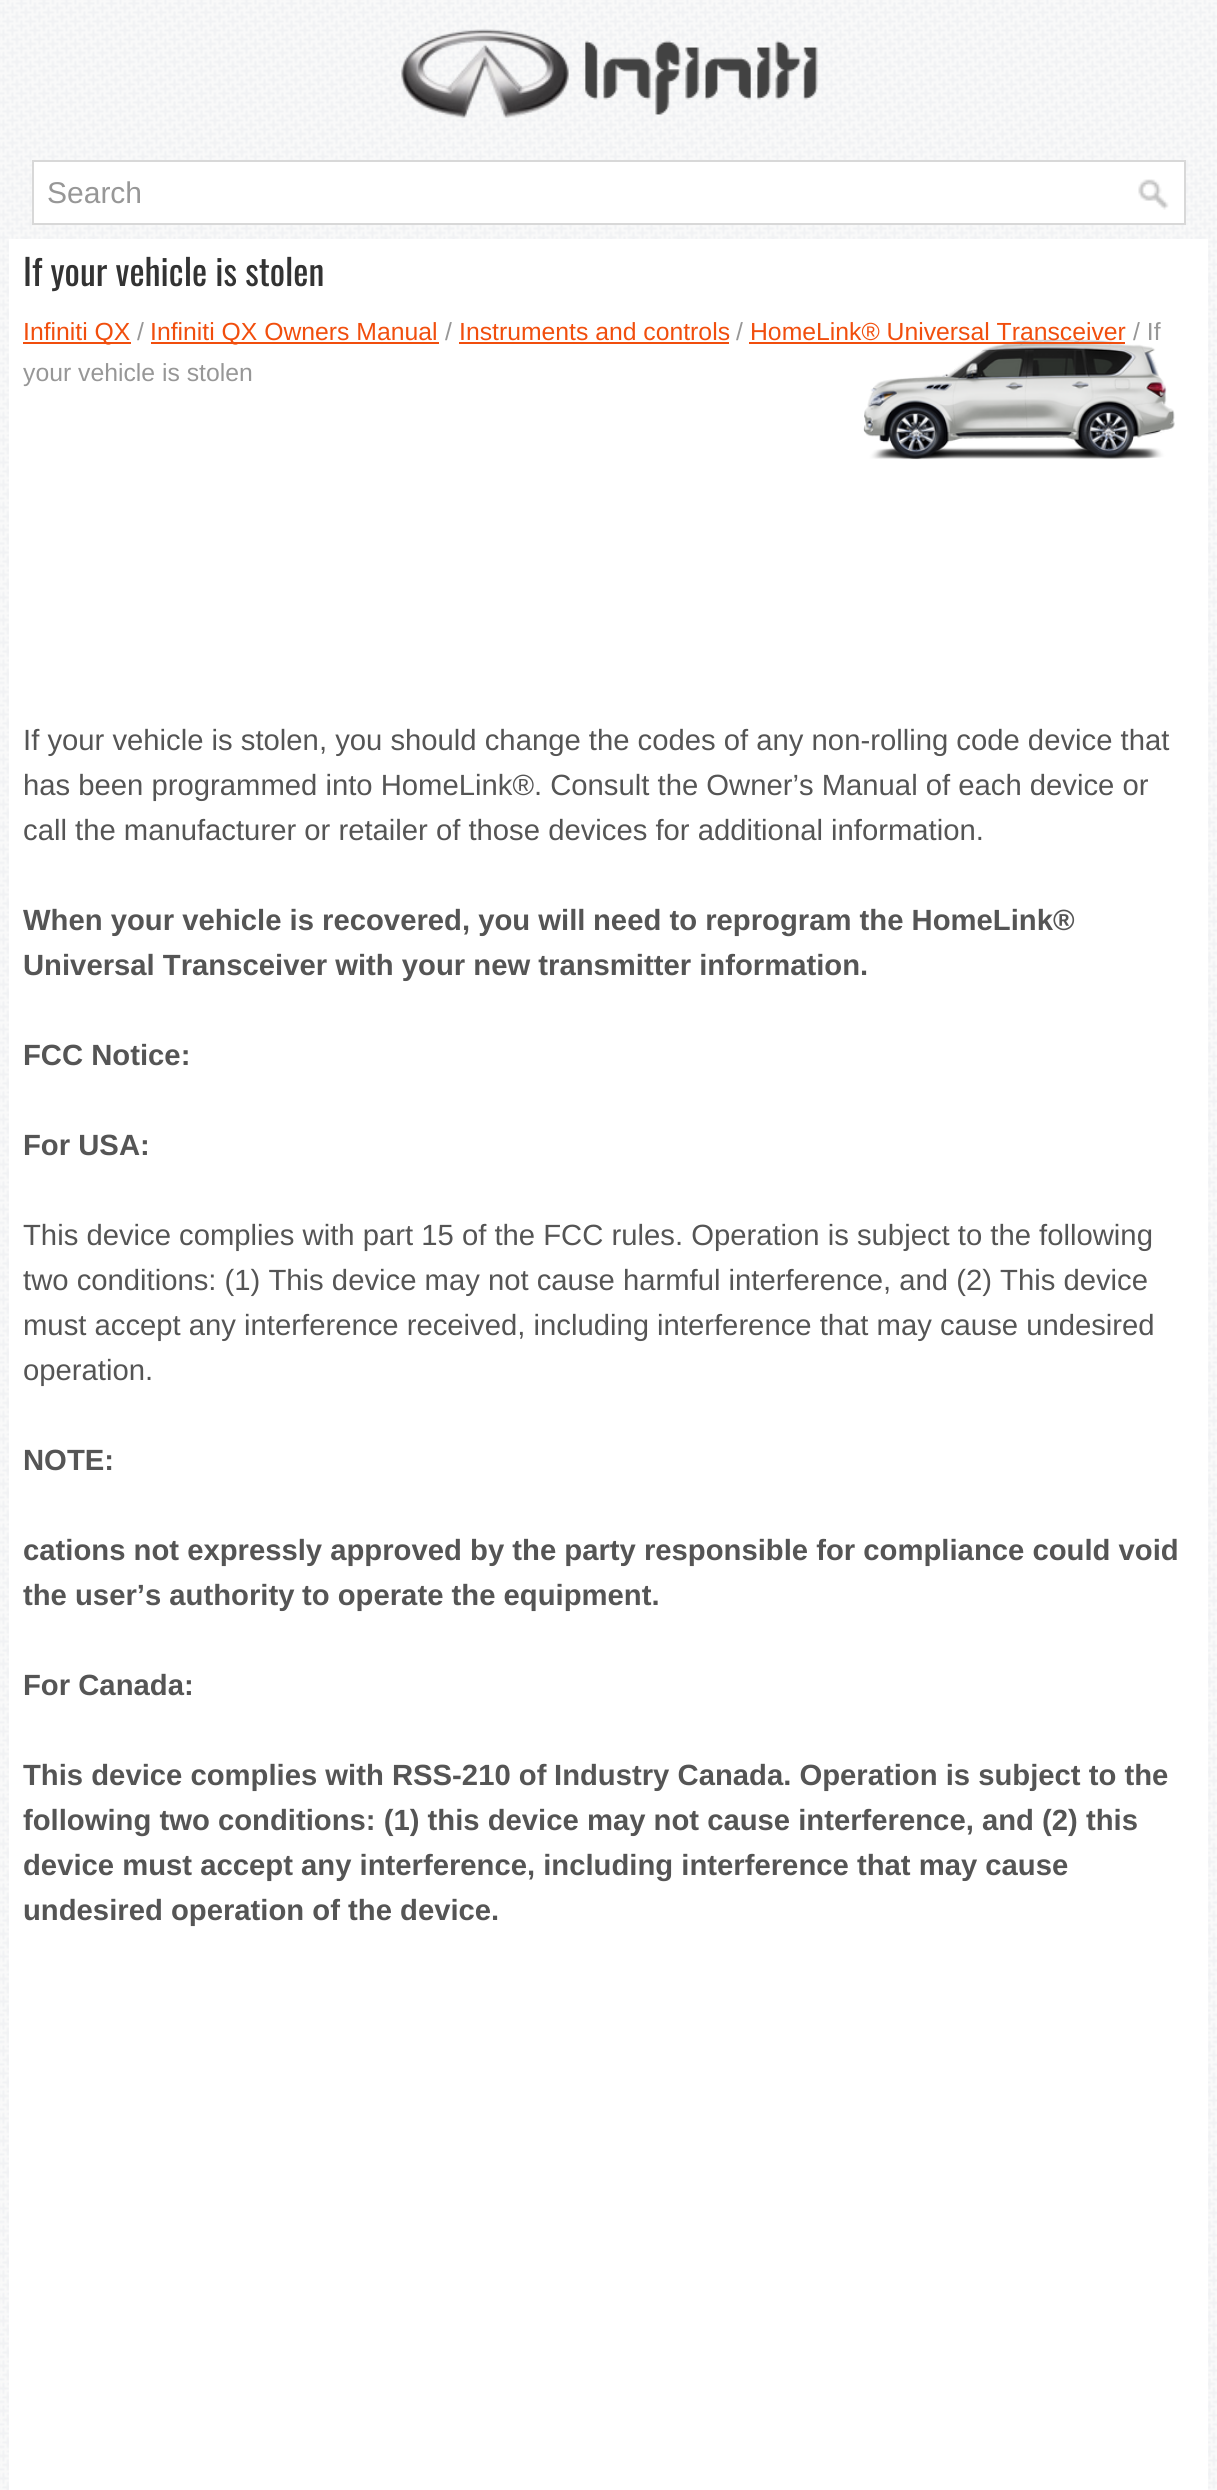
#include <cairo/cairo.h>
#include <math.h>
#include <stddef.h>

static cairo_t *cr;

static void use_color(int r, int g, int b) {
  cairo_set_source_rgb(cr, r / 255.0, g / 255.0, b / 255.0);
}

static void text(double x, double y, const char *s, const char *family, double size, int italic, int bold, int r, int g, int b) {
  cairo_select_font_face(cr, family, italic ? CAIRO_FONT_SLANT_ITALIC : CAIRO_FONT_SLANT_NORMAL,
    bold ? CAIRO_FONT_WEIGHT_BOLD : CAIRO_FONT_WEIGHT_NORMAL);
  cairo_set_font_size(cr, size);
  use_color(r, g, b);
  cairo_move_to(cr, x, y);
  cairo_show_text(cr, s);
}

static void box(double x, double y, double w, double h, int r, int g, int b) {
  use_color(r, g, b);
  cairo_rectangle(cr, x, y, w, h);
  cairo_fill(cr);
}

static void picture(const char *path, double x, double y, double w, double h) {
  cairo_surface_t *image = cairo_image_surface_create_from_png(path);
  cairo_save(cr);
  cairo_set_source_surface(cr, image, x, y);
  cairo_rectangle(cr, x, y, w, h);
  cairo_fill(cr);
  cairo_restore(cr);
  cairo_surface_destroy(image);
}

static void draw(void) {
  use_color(255, 255, 255);
  cairo_paint(cr);
  picture("img_01.png", 0, 0, 1217, 2490);
  picture("img_02.png", 401, 29, 417, 89);
  use_color(255, 255, 255);
  cairo_rectangle(cr, 33, 161, 1152, 63);
  cairo_fill_preserve(cr);
  use_color(216, 216, 216);
  cairo_stroke(cr);
  picture("img_03.png", 1138, 179, 31, 31);
  box(9, 239, 1199, 2251, 255, 255, 255);
  box(23, 342, 108, 2, 241, 78, 13);
  box(151, 342, 288, 2, 241, 78, 13);
  box(459, 342, 270, 2, 241, 78, 13);
  picture("img_04.png", 863, 339, 312, 121);
  box(749, 342, 376, 2, 241, 78, 13);
  text(47, 203, "Search", "Liberation Sans", 30, 0, 0, 151, 151, 151);
  text(23, 286, "If your vehicle is stolen", "Oswald", 36, 0, 0, 51, 51, 51);
  text(23, 340, "Infiniti QX", "Liberation Sans", 24.75, 0, 0, 241, 78, 13);
  text(137, 340, "/", "Liberation Sans", 24.75, 0, 0, 151, 151, 151);
  text(150, 340, "Infiniti QX Owners Manual", "Liberation Sans", 24.75, 0, 0, 241, 78, 13);
  text(445, 340, "/", "Liberation Sans", 24.75, 0, 0, 151, 151, 151);
  text(459, 340, "Instruments and controls", "Liberation Sans", 24.75, 0, 0, 241, 78, 13);
  text(736, 340, "/", "Liberation Sans", 24.75, 0, 0, 151, 151, 151);
  text(750, 340, "HomeLink® Universal Transceiver", "Liberation Sans", 24.75, 0, 0, 241, 78, 13);
  text(1133, 340, "/ If", "Liberation Sans", 24.75, 0, 0, 151, 151, 151);
  text(23, 381, "your vehicle is stolen", "Liberation Sans", 24.75, 0, 0, 151, 151, 151);
  text(23, 750, "If your vehicle is stolen, you should change the codes of any non-rolling code device that", "Liberation Sans", 29.25, 0, 0, 85, 85, 85);
  text(23, 795, "has been programmed into HomeLink®. Consult the Owner’s Manual of each device or", "Liberation Sans", 29.25, 0, 0, 85, 85, 85);
  text(23, 840, "call the manufacturer or retailer of those devices for additional information.", "Liberation Sans", 29.25, 0, 0, 85, 85, 85);
  cairo_save(cr);
  cairo_rectangle(cr, 23, 252, 1172, 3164);
  cairo_clip(cr);
  text(23, 930, "When your vehicle is recovered, you will", "Liberation Sans", 29.25, 0, 1, 85, 85, 85);
  cairo_restore(cr);
  text(593, 930, "need to reprogram the HomeLink®", "Liberation Sans", 29.25, 0, 1, 85, 85, 85);
  text(23, 975, "Universal Transceiver with your new transmitter information.", "Liberation Sans", 29.25, 0, 1, 85, 85, 85);
  text(23, 1065, "FCC Notice:", "Liberation Sans", 29.25, 0, 1, 85, 85, 85);
  text(23, 1155, "For USA:", "Liberation Sans", 29.25, 0, 1, 85, 85, 85);
  text(23, 1245, "This device complies with part 15 of the FCC rules. Operation is subject to the following", "Liberation Sans", 29.25, 0, 0, 85, 85, 85);
  text(23, 1290, "two conditions: (1) This device may not cause harmful interference, and (2) This device", "Liberation Sans", 29.25, 0, 0, 85, 85, 85);
  text(23, 1335, "must accept any interference received, including interference that may cause undesired", "Liberation Sans", 29.25, 0, 0, 85, 85, 85);
  text(23, 1380, "operation.", "Liberation Sans", 29.25, 0, 0, 85, 85, 85);
  text(23, 1470, "NOTE:", "Liberation Sans", 29.25, 0, 1, 85, 85, 85);
  text(23, 1560, "cations not expressly approved by the party responsible for compliance could void", "Liberation Sans", 29.25, 0, 1, 85, 85, 85);
  cairo_save(cr);
  cairo_rectangle(cr, 23, 252, 1172, 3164);
  cairo_clip(cr);
  text(23, 1605, "the user’s authority", "Liberation Sans", 29.25, 0, 1, 85, 85, 85);
  cairo_restore(cr);
  text(302, 1605, "to operate the equipment.", "Liberation Sans", 29.25, 0, 1, 85, 85, 85);
  text(23, 1695, "For Canada:", "Liberation Sans", 29.25, 0, 1, 85, 85, 85);
  cairo_save(cr);
  cairo_rectangle(cr, 23, 252, 1172, 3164);
  cairo_clip(cr);
  text(23, 1785, "This device complies with RSS-210 of", "Liberation Sans", 29.25, 0, 1, 85, 85, 85);
  cairo_restore(cr);
  text(554, 1785, "Industry Canada. Operation is subject to the", "Liberation Sans", 29.25, 0, 1, 85, 85, 85);
  text(23, 1830, "following two conditions: (1) this device may not cause interference, and (2) this", "Liberation Sans", 29.25, 0, 1, 85, 85, 85);
  text(23, 1875, "device must accept any interference, including interference that may cause", "Liberation Sans", 29.25, 0, 1, 85, 85, 85);
  text(23, 1920, "undesired operation of the device.", "Liberation Sans", 29.25, 0, 1, 85, 85, 85);
}

int main(void) {
  cairo_surface_t *surface = cairo_image_surface_create(CAIRO_FORMAT_RGB24, 1217, 2490);
  cr = cairo_create(surface);
  cairo_font_options_t *options = cairo_font_options_create();
  cairo_font_options_set_hint_metrics(options, CAIRO_HINT_METRICS_OFF);
  cairo_font_options_set_hint_style(options, CAIRO_HINT_STYLE_NONE);
  cairo_set_font_options(cr, options);
  cairo_set_miter_limit(cr, 4);
  draw();
  cairo_surface_write_to_png(surface, "out.png");
  cairo_font_options_destroy(options);
  cairo_destroy(cr);
  cairo_surface_destroy(surface);
  return 0;
}
